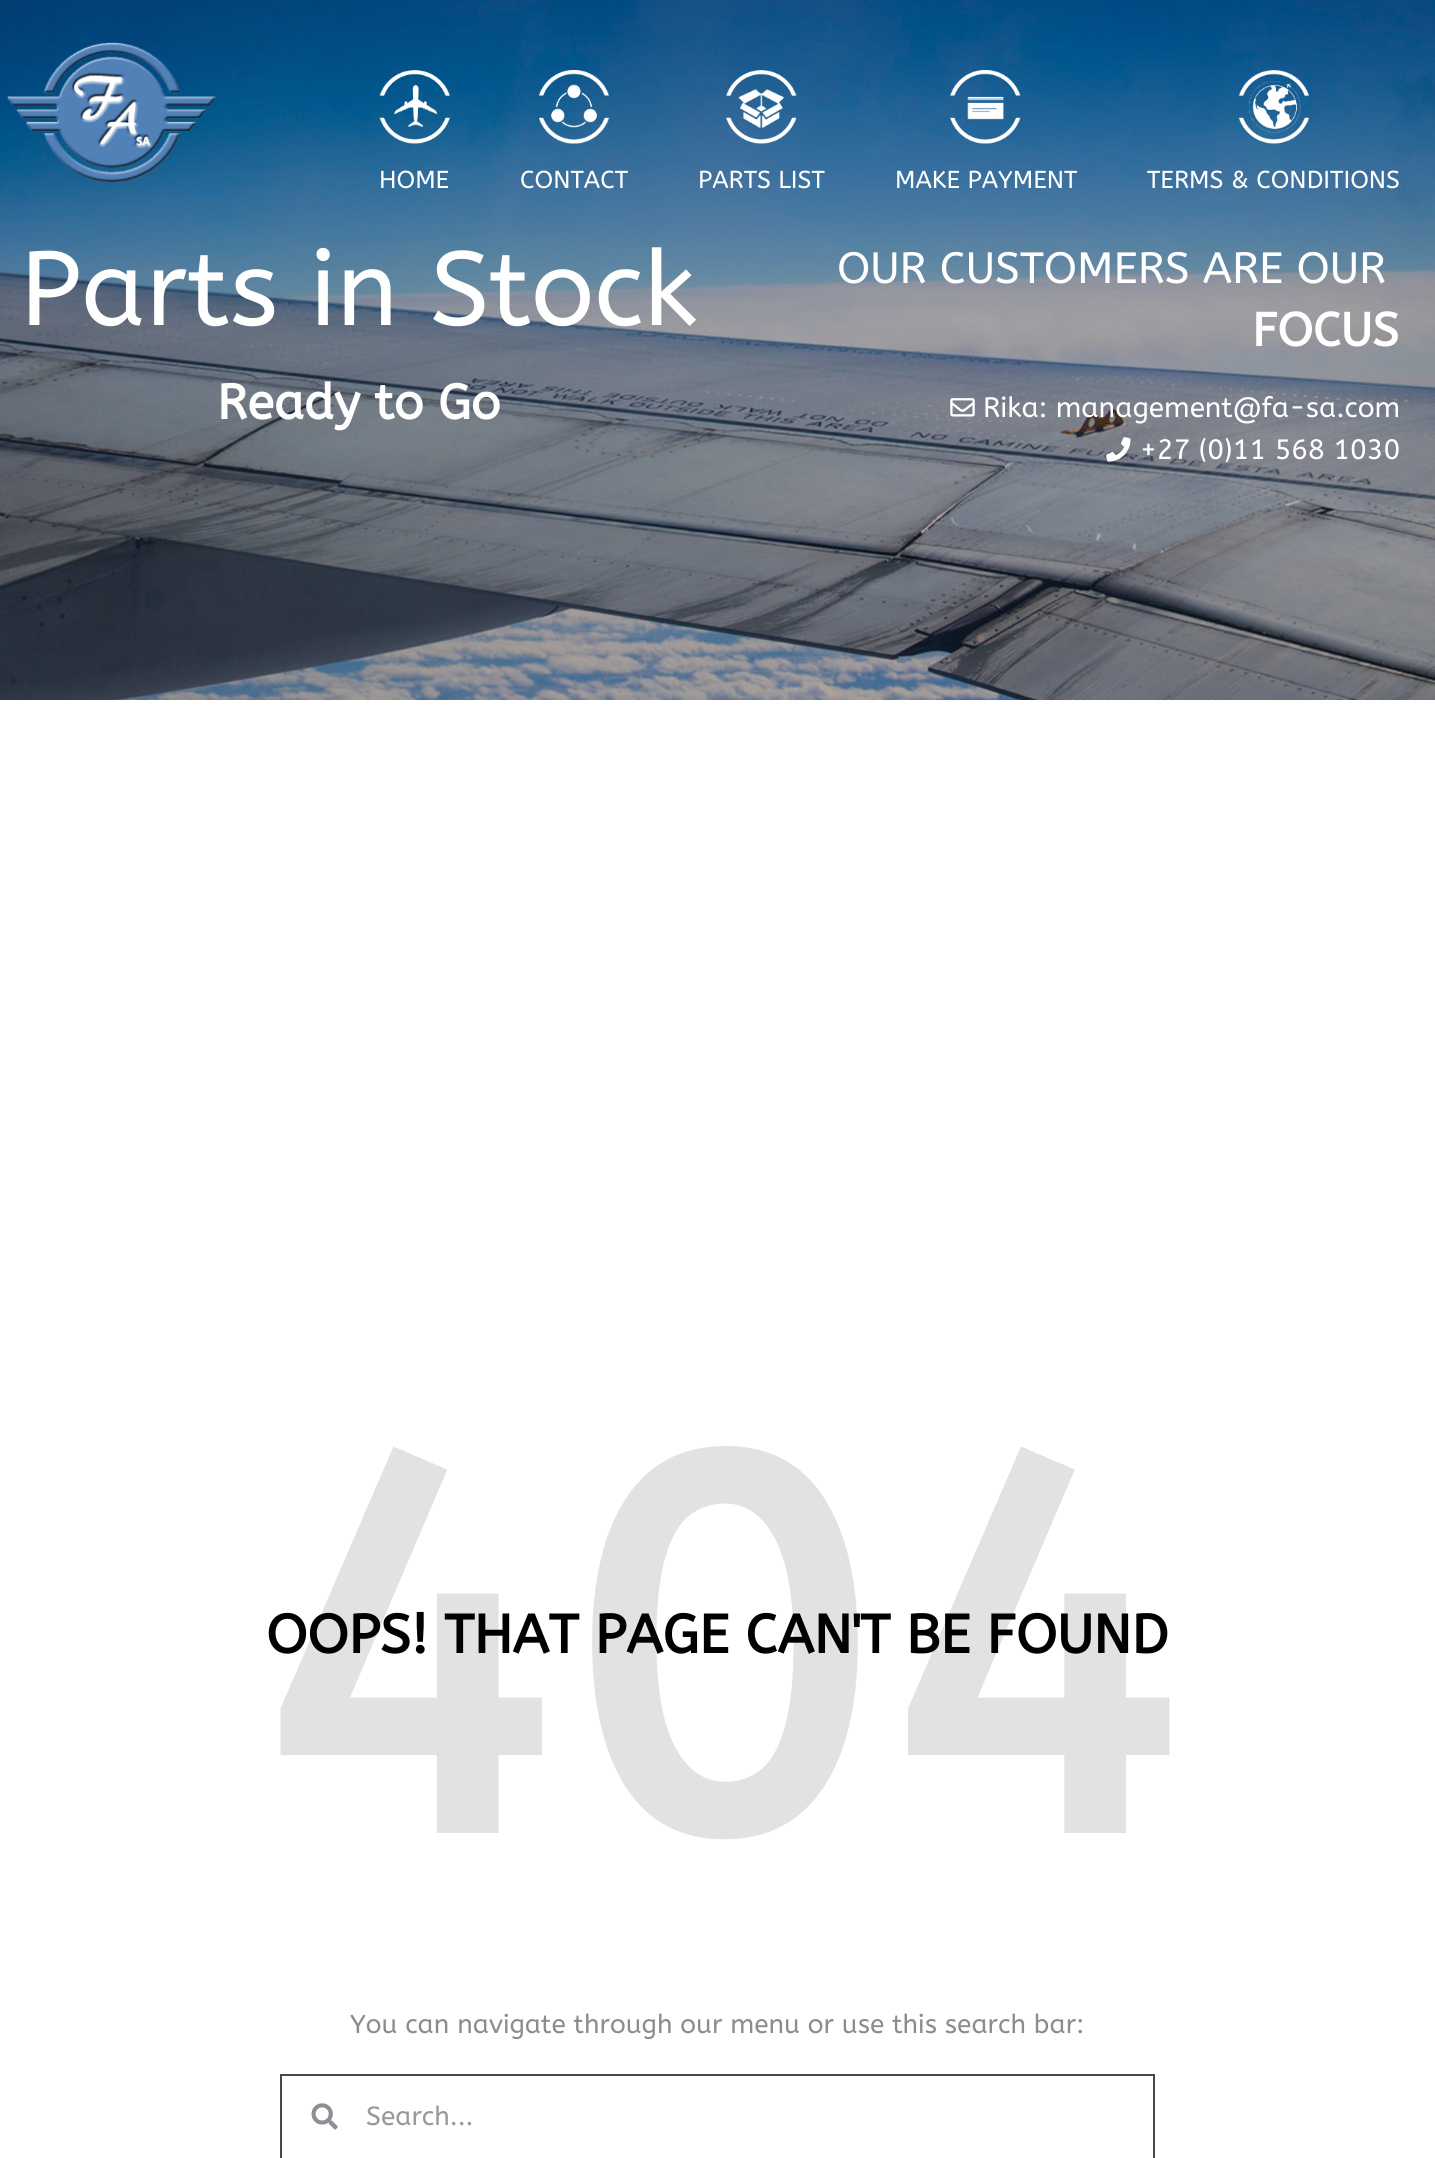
#include <cairo/cairo.h>
#include <math.h>
#include <stddef.h>

static cairo_t *cr;

static void use_color(int r, int g, int b) {
  cairo_set_source_rgb(cr, r / 255.0, g / 255.0, b / 255.0);
}

static void text(double x, double y, const char *s, const char *family, double size, int italic, int bold, int r, int g, int b) {
  cairo_select_font_face(cr, family, italic ? CAIRO_FONT_SLANT_ITALIC : CAIRO_FONT_SLANT_NORMAL,
    bold ? CAIRO_FONT_WEIGHT_BOLD : CAIRO_FONT_WEIGHT_NORMAL);
  cairo_set_font_size(cr, size);
  use_color(r, g, b);
  cairo_move_to(cr, x, y);
  cairo_show_text(cr, s);
}

static void picture(const char *path, double x, double y, double w, double h) {
  cairo_surface_t *image = cairo_image_surface_create_from_png(path);
  cairo_save(cr);
  cairo_set_source_surface(cr, image, x, y);
  cairo_rectangle(cr, x, y, w, h);
  cairo_fill(cr);
  cairo_restore(cr);
  cairo_surface_destroy(image);
}

static void draw(void) {
  use_color(255, 255, 255);
  cairo_paint(cr);
  picture("img_01.png", 0, 0, 1435, 700);
  picture("img_02.png", 7, 42, 209, 141);
  picture("img_03.png", 379, 70, 71, 74);
  picture("img_04.png", 539, 70, 70, 74);
  picture("img_05.png", 726, 70, 71, 74);
  picture("img_06.png", 950, 70, 71, 74);
  picture("img_07.png", 1239, 70, 70, 74);
  picture("img_08.png", 950, 398, 25, 19);
  picture("img_09.png", 1106, 437, 25, 25);
  cairo_rectangle(cr, 281, 2075, 873, 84);
  use_color(71, 71, 71);
  cairo_stroke(cr);
  picture("img_10.png", 311, 2103, 27, 27);
  text(379, 188, "HOME", "ABeeZee", 24.5, 0, 0, 255, 255, 255);
  text(520, 188, "CONTACT", "ABeeZee", 24.5, 0, 0, 255, 255, 255);
  text(698, 188, "PARTS LIST", "ABeeZee", 24.5, 0, 0, 255, 255, 255);
  text(895, 188, "MAKE PAYMENT", "ABeeZee", 24.5, 0, 0, 255, 255, 255);
  text(1147, 188, "TERMS & CONDITIONS", "ABeeZee", 24.5, 0, 0, 255, 255, 255);
  text(20, 325, "Parts in Stock", "ABeeZee", 105, 0, 0, 255, 255, 255);
  text(217, 419, "Ready to Go", "ABeeZee", 49, 0, 1, 255, 255, 255);
  text(837, 283, "OUR CUSTOMERS ARE OUR", "ABeeZee", 43.75, 0, 0, 255, 255, 255);
  text(1252, 346, "FOCUS", "ABeeZee", 47, 0, 1, 255, 255, 255);
  text(983, 417, "Rika: management@fa-sa.com", "ABeeZee", 28, 0, 0, 255, 255, 255);
  text(1140, 459, "+27 (0)11 568 1030", "ABeeZee", 28, 0, 0, 255, 255, 255);
  text(247, 1833, "404", "ABeeZee", 523, 0, 1, 226, 226, 226);
  text(266, 1653, "OOPS! THAT PAGE CAN'T BE FOUND", "ABeeZee", 54.25, 0, 1, 0, 0, 0);
  text(350, 2033, "You can navigate through our menu or use this search bar:", "ABeeZee", 26.25, 0, 0, 140, 140, 140);
  text(366, 2125, "Search...", "ABeeZee", 26.25, 0, 0, 152, 152, 152);
}

int main(void) {
  cairo_surface_t *surface = cairo_image_surface_create(CAIRO_FORMAT_RGB24, 1435, 2158);
  cr = cairo_create(surface);
  cairo_font_options_t *options = cairo_font_options_create();
  cairo_font_options_set_hint_metrics(options, CAIRO_HINT_METRICS_OFF);
  cairo_font_options_set_hint_style(options, CAIRO_HINT_STYLE_NONE);
  cairo_set_font_options(cr, options);
  cairo_set_miter_limit(cr, 4);
  draw();
  cairo_surface_write_to_png(surface, "out.png");
  cairo_font_options_destroy(options);
  cairo_destroy(cr);
  cairo_surface_destroy(surface);
  return 0;
}
